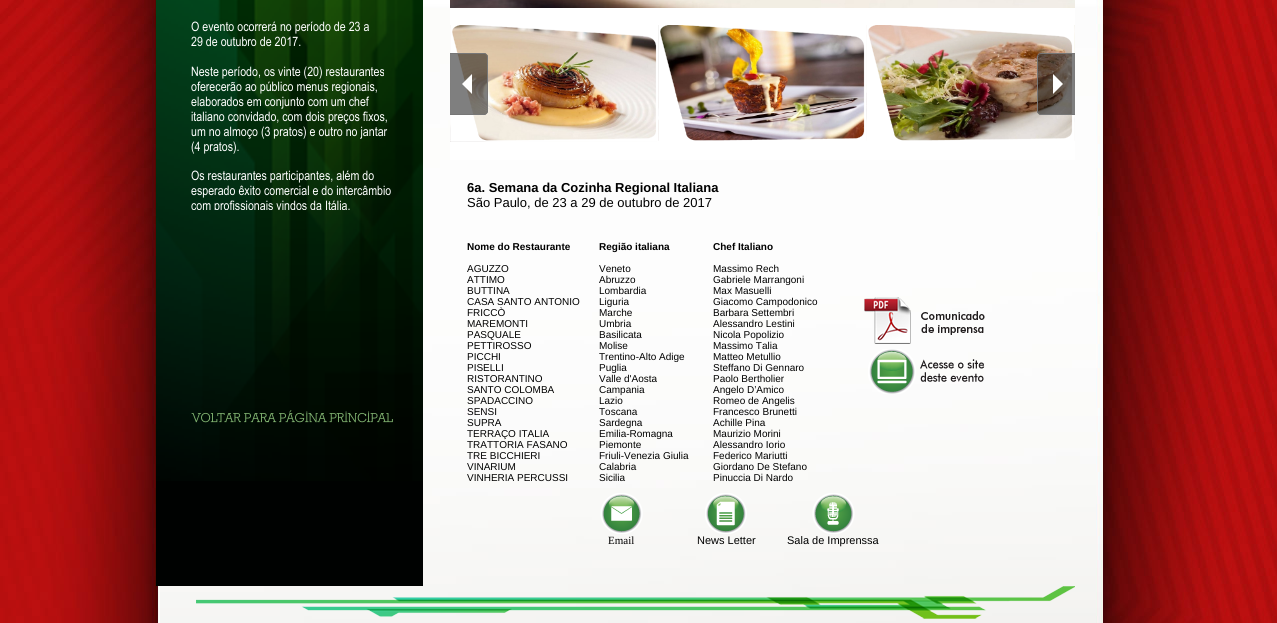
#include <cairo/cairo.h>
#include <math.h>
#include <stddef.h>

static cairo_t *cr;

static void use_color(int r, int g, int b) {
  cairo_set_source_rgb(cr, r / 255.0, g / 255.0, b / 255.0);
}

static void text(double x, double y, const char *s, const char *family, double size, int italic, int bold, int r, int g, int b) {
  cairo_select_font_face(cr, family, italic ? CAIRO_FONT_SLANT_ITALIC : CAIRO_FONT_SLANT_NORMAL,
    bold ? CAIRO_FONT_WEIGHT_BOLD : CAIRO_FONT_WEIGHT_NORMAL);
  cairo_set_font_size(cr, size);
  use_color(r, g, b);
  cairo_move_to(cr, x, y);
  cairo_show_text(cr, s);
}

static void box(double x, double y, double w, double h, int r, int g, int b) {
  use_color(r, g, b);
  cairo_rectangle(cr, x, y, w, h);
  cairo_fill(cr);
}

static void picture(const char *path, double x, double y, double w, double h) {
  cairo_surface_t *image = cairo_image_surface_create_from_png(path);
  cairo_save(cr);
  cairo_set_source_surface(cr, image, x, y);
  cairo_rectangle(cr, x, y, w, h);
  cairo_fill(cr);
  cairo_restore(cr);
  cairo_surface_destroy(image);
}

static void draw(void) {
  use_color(255, 255, 255);
  cairo_paint(cr);
  picture("img_01.png", 0, 0, 1277, 623);
  box(156, 481, 267, 105, 0, 2, 1);
  picture("img_02.png", 156, 0, 267, 481);
  box(450, 8, 625, 152, 255, 255, 255);
  picture("img_03.png", 450, 0, 625, 8);
  picture("img_04.png", 450, 25, 207, 117);
  picture("img_05.png", 450, 25, 207, 117);
  picture("img_06.png", 658, 25, 207, 116);
  picture("img_07.png", 658, 25, 207, 116);
  picture("img_08.png", 866, 25, 207, 116);
  picture("img_09.png", 866, 25, 207, 116);
  picture("img_10.png", 1074, 25, 1, 116);
  picture("img_11.png", 1074, 25, 1, 116);
  cairo_set_source_rgba(cr, 0, 0, 0, 0.5);
  cairo_new_path(cr);
  cairo_move_to(cr, 450, 53);
  cairo_line_to(cr, 484, 53);
  cairo_curve_to(cr, 486, 53, 488, 55, 488, 57);
  cairo_line_to(cr, 488, 111);
  cairo_curve_to(cr, 488, 113, 486, 115, 484, 115);
  cairo_line_to(cr, 450, 115);
  cairo_close_path(cr);
  cairo_fill(cr);
  use_color(119, 119, 119);
  cairo_set_fill_rule(cr, CAIRO_FILL_RULE_EVEN_ODD);
  cairo_new_path(cr);
  cairo_move_to(cr, 450, 53);
  cairo_line_to(cr, 484, 53);
  cairo_curve_to(cr, 486, 53, 488, 55, 488, 57);
  cairo_line_to(cr, 488, 111);
  cairo_curve_to(cr, 488, 113, 486, 115, 484, 115);
  cairo_line_to(cr, 450, 115);
  cairo_close_path(cr);
  cairo_move_to(cr, 450, 54);
  cairo_line_to(cr, 484, 54);
  cairo_curve_to(cr, 486, 54, 487, 55, 487, 57);
  cairo_line_to(cr, 487, 111);
  cairo_curve_to(cr, 487, 113, 486, 114, 484, 114);
  cairo_line_to(cr, 450, 114);
  cairo_close_path(cr);
  cairo_fill(cr);
  use_color(255, 255, 255);
  cairo_set_fill_rule(cr, CAIRO_FILL_RULE_WINDING);
  cairo_new_path(cr);
  cairo_move_to(cr, 472, 74);
  cairo_line_to(cr, 472, 94);
  cairo_line_to(cr, 462, 84);
  cairo_close_path(cr);
  cairo_fill(cr);
  cairo_set_source_rgba(cr, 0, 0, 0, 0.5);
  cairo_new_path(cr);
  cairo_move_to(cr, 1041, 53);
  cairo_line_to(cr, 1075, 53);
  cairo_line_to(cr, 1075, 115);
  cairo_line_to(cr, 1041, 115);
  cairo_curve_to(cr, 1039, 115, 1037, 113, 1037, 111);
  cairo_line_to(cr, 1037, 57);
  cairo_curve_to(cr, 1037, 55, 1039, 53, 1041, 53);
  cairo_close_path(cr);
  cairo_fill(cr);
  use_color(119, 119, 119);
  cairo_set_fill_rule(cr, CAIRO_FILL_RULE_EVEN_ODD);
  cairo_new_path(cr);
  cairo_move_to(cr, 1041, 53);
  cairo_line_to(cr, 1075, 53);
  cairo_line_to(cr, 1075, 115);
  cairo_line_to(cr, 1041, 115);
  cairo_curve_to(cr, 1039, 115, 1037, 113, 1037, 111);
  cairo_line_to(cr, 1037, 57);
  cairo_curve_to(cr, 1037, 55, 1039, 53, 1041, 53);
  cairo_close_path(cr);
  cairo_move_to(cr, 1041, 54);
  cairo_line_to(cr, 1075, 54);
  cairo_line_to(cr, 1075, 114);
  cairo_line_to(cr, 1041, 114);
  cairo_curve_to(cr, 1039, 114, 1038, 113, 1038, 111);
  cairo_line_to(cr, 1038, 57);
  cairo_curve_to(cr, 1038, 55, 1039, 54, 1041, 54);
  cairo_close_path(cr);
  cairo_fill(cr);
  use_color(255, 255, 255);
  cairo_set_fill_rule(cr, CAIRO_FILL_RULE_WINDING);
  cairo_new_path(cr);
  cairo_move_to(cr, 1053, 94);
  cairo_line_to(cr, 1053, 74);
  cairo_line_to(cr, 1063, 84);
  cairo_close_path(cr);
  cairo_fill(cr);
  picture("img_12.png", 864, 297, 121, 47);
  picture("img_13.png", 868, 349, 117, 45);
  picture("img_14.png", 600, 493, 43, 41);
  picture("img_15.png", 705, 493, 42, 41);
  picture("img_16.png", 812, 493, 43, 41);
  picture("img_17.png", 196, 586, 879, 33);
  text(191, 31, "O evento ocorrerá no período de 23 a", "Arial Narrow", 13, 0, 0, 255, 255, 255);
  text(191, 46, "29 de outubro de 2017.", "Arial Narrow", 13, 0, 0, 255, 255, 255);
  text(191, 76, "Neste período, os vinte (20) restaurantes", "Arial Narrow", 13, 0, 0, 255, 255, 255);
  text(191, 91, "oferecerão ao público menus regionais,", "Arial Narrow", 13, 0, 0, 255, 255, 255);
  text(191, 106, "elaborados em conjunto com um chef", "Arial Narrow", 13, 0, 0, 255, 255, 255);
  text(191, 121, "italiano convidado, com dois preços fixos,", "Arial Narrow", 13, 0, 0, 255, 255, 255);
  text(191, 136, "um no almoço (3 pratos) e outro no jantar", "Arial Narrow", 13, 0, 0, 255, 255, 255);
  text(191, 151, "(4 pratos).", "Arial Narrow", 13, 0, 0, 255, 255, 255);
  text(191, 180, "Os restaurantes participantes, além do", "Arial Narrow", 13, 0, 0, 255, 255, 255);
  text(191, 195, "esperado êxito comercial e do intercâmbio", "Arial Narrow", 13, 0, 0, 255, 255, 255);
  cairo_save(cr);
  cairo_rectangle(cr, 191, 0, 215, 210);
  cairo_clip(cr);
  text(191, 210, "com profissionais vindos da Itália,", "Arial Narrow", 13, 0, 0, 255, 255, 255);
  cairo_restore(cr);
  text(192, 422, "VOLTAR PARA PÁGINA PRINCIPAL", "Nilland", 13, 0, 1, 130, 181, 114);
  text(467, 192, "6a. Semana da Cozinha Regional Italiana", "Liberation Sans", 13, 0, 1, 0, 0, 0);
  text(467, 207, "São Paulo, de 23 a 29 de outubro de 2017", "Liberation Sans", 13, 0, 0, 0, 0, 0);
  text(467, 250, "Nome do Restaurante", "Liberation Sans", 10, 0, 1, 0, 0, 0);
  text(599, 250, "Região italiana", "Liberation Sans", 10, 0, 1, 0, 0, 0);
  text(713, 250, "Chef Italiano", "Liberation Sans", 10, 0, 1, 0, 0, 0);
  text(467, 272, "AGUZZO", "Liberation Sans", 10, 0, 0, 0, 0, 0);
  text(599, 272, "Veneto", "Liberation Sans", 10, 0, 0, 0, 0, 0);
  text(713, 272, "Massimo Rech", "Liberation Sans", 10, 0, 0, 0, 0, 0);
  text(467, 283, "ATTIMO", "Liberation Sans", 10, 0, 0, 0, 0, 0);
  text(599, 283, "Abruzzo", "Liberation Sans", 10, 0, 0, 0, 0, 0);
  text(713, 283, "Gabriele Marrangoni", "Liberation Sans", 10, 0, 0, 0, 0, 0);
  text(467, 294, "BUTTINA", "Liberation Sans", 10, 0, 0, 0, 0, 0);
  text(599, 294, "Lombardia", "Liberation Sans", 10, 0, 0, 0, 0, 0);
  text(713, 294, "Max Masuelli", "Liberation Sans", 10, 0, 0, 0, 0, 0);
  text(467, 305, "CASA SANTO ANTONIO", "Liberation Sans", 10, 0, 0, 0, 0, 0);
  text(599, 305, "Liguria", "Liberation Sans", 10, 0, 0, 0, 0, 0);
  text(713, 305, "Giacomo Campodonico", "Liberation Sans", 10, 0, 0, 0, 0, 0);
  text(467, 316, "FRICCÒ", "Liberation Sans", 10, 0, 0, 0, 0, 0);
  text(599, 316, "Marche", "Liberation Sans", 10, 0, 0, 0, 0, 0);
  text(713, 316, "Barbara Settembri", "Liberation Sans", 10, 0, 0, 0, 0, 0);
  text(467, 327, "MAREMONTI", "Liberation Sans", 10, 0, 0, 0, 0, 0);
  text(599, 327, "Umbria", "Liberation Sans", 10, 0, 0, 0, 0, 0);
  text(713, 327, "Alessandro Lestini", "Liberation Sans", 10, 0, 0, 0, 0, 0);
  text(467, 338, "PASQUALE", "Liberation Sans", 10, 0, 0, 0, 0, 0);
  text(599, 338, "Basilicata", "Liberation Sans", 10, 0, 0, 0, 0, 0);
  text(713, 338, "Nicola Popolizio", "Liberation Sans", 10, 0, 0, 0, 0, 0);
  text(467, 349, "PETTIROSSO", "Liberation Sans", 10, 0, 0, 0, 0, 0);
  text(599, 349, "Molise", "Liberation Sans", 10, 0, 0, 0, 0, 0);
  text(713, 349, "Massimo Talia", "Liberation Sans", 10, 0, 0, 0, 0, 0);
  text(467, 360, "PICCHI", "Liberation Sans", 10, 0, 0, 0, 0, 0);
  text(599, 360, "Trentino-Alto Adige", "Liberation Sans", 10, 0, 0, 0, 0, 0);
  text(713, 360, "Matteo Metullio", "Liberation Sans", 10, 0, 0, 0, 0, 0);
  text(467, 371, "PISELLI", "Liberation Sans", 10, 0, 0, 0, 0, 0);
  text(599, 371, "Puglia", "Liberation Sans", 10, 0, 0, 0, 0, 0);
  text(713, 371, "Steffano Di Gennaro", "Liberation Sans", 10, 0, 0, 0, 0, 0);
  text(467, 382, "RISTORANTINO", "Liberation Sans", 10, 0, 0, 0, 0, 0);
  text(599, 382, "Valle d'Aosta", "Liberation Sans", 10, 0, 0, 0, 0, 0);
  text(713, 382, "Paolo Bertholier", "Liberation Sans", 10, 0, 0, 0, 0, 0);
  text(467, 393, "SANTO COLOMBA", "Liberation Sans", 10, 0, 0, 0, 0, 0);
  text(599, 393, "Campania", "Liberation Sans", 10, 0, 0, 0, 0, 0);
  text(713, 393, "Angelo D’Amico", "Liberation Sans", 10, 0, 0, 0, 0, 0);
  text(467, 404, "SPADACCINO", "Liberation Sans", 10, 0, 0, 0, 0, 0);
  text(599, 404, "Lazio", "Liberation Sans", 10, 0, 0, 0, 0, 0);
  text(713, 404, "Romeo de Angelis", "Liberation Sans", 10, 0, 0, 0, 0, 0);
  text(467, 415, "SENSI", "Liberation Sans", 10, 0, 0, 0, 0, 0);
  text(599, 415, "Toscana", "Liberation Sans", 10, 0, 0, 0, 0, 0);
  text(713, 415, "Francesco Brunetti", "Liberation Sans", 10, 0, 0, 0, 0, 0);
  text(467, 426, "SUPRA", "Liberation Sans", 10, 0, 0, 0, 0, 0);
  text(599, 426, "Sardegna", "Liberation Sans", 10, 0, 0, 0, 0, 0);
  text(713, 426, "Achille Pina", "Liberation Sans", 10, 0, 0, 0, 0, 0);
  text(467, 437, "TERRAÇO ITALIA", "Liberation Sans", 10, 0, 0, 0, 0, 0);
  text(599, 437, "Emilia-Romagna", "Liberation Sans", 10, 0, 0, 0, 0, 0);
  text(713, 437, "Maurizio Morini", "Liberation Sans", 10, 0, 0, 0, 0, 0);
  text(467, 448, "TRATTORIA FASANO", "Liberation Sans", 10, 0, 0, 0, 0, 0);
  text(599, 448, "Piemonte", "Liberation Sans", 10, 0, 0, 0, 0, 0);
  text(713, 448, "Alessandro Iorio", "Liberation Sans", 10, 0, 0, 0, 0, 0);
  text(467, 459, "TRE BICCHIERI", "Liberation Sans", 10, 0, 0, 0, 0, 0);
  text(599, 459, "Friuli-Venezia Giulia", "Liberation Sans", 10, 0, 0, 0, 0, 0);
  text(713, 459, "Federico Mariutti", "Liberation Sans", 10, 0, 0, 0, 0, 0);
  text(467, 470, "VINARIUM", "Liberation Sans", 10, 0, 0, 0, 0, 0);
  text(599, 470, "Calabria", "Liberation Sans", 10, 0, 0, 0, 0, 0);
  text(713, 470, "Giordano De Stefano", "Liberation Sans", 10, 0, 0, 0, 0, 0);
  text(467, 481, "VINHERIA PERCUSSI", "Liberation Sans", 10, 0, 0, 0, 0, 0);
  text(599, 481, "Sicilia", "Liberation Sans", 10, 0, 0, 0, 0, 0);
  text(713, 481, "Pinuccia Di Nardo", "Liberation Sans", 10, 0, 0, 0, 0, 0);
  text(608, 544, "Email", "Liberation Serif", 11, 0, 0, 0, 0, 0);
  text(697, 544, "News Letter", "Liberation Sans", 11, 0, 0, 0, 0, 0);
  text(787, 544, "Sala de Imprenssa", "Liberation Sans", 11, 0, 0, 0, 0, 0);
}

int main(void) {
  cairo_surface_t *surface = cairo_image_surface_create(CAIRO_FORMAT_RGB24, 1277, 623);
  cr = cairo_create(surface);
  cairo_font_options_t *options = cairo_font_options_create();
  cairo_font_options_set_hint_metrics(options, CAIRO_HINT_METRICS_OFF);
  cairo_font_options_set_hint_style(options, CAIRO_HINT_STYLE_NONE);
  cairo_set_font_options(cr, options);
  cairo_set_miter_limit(cr, 4);
  draw();
  cairo_surface_write_to_png(surface, "out.png");
  cairo_font_options_destroy(options);
  cairo_destroy(cr);
  cairo_surface_destroy(surface);
  return 0;
}
